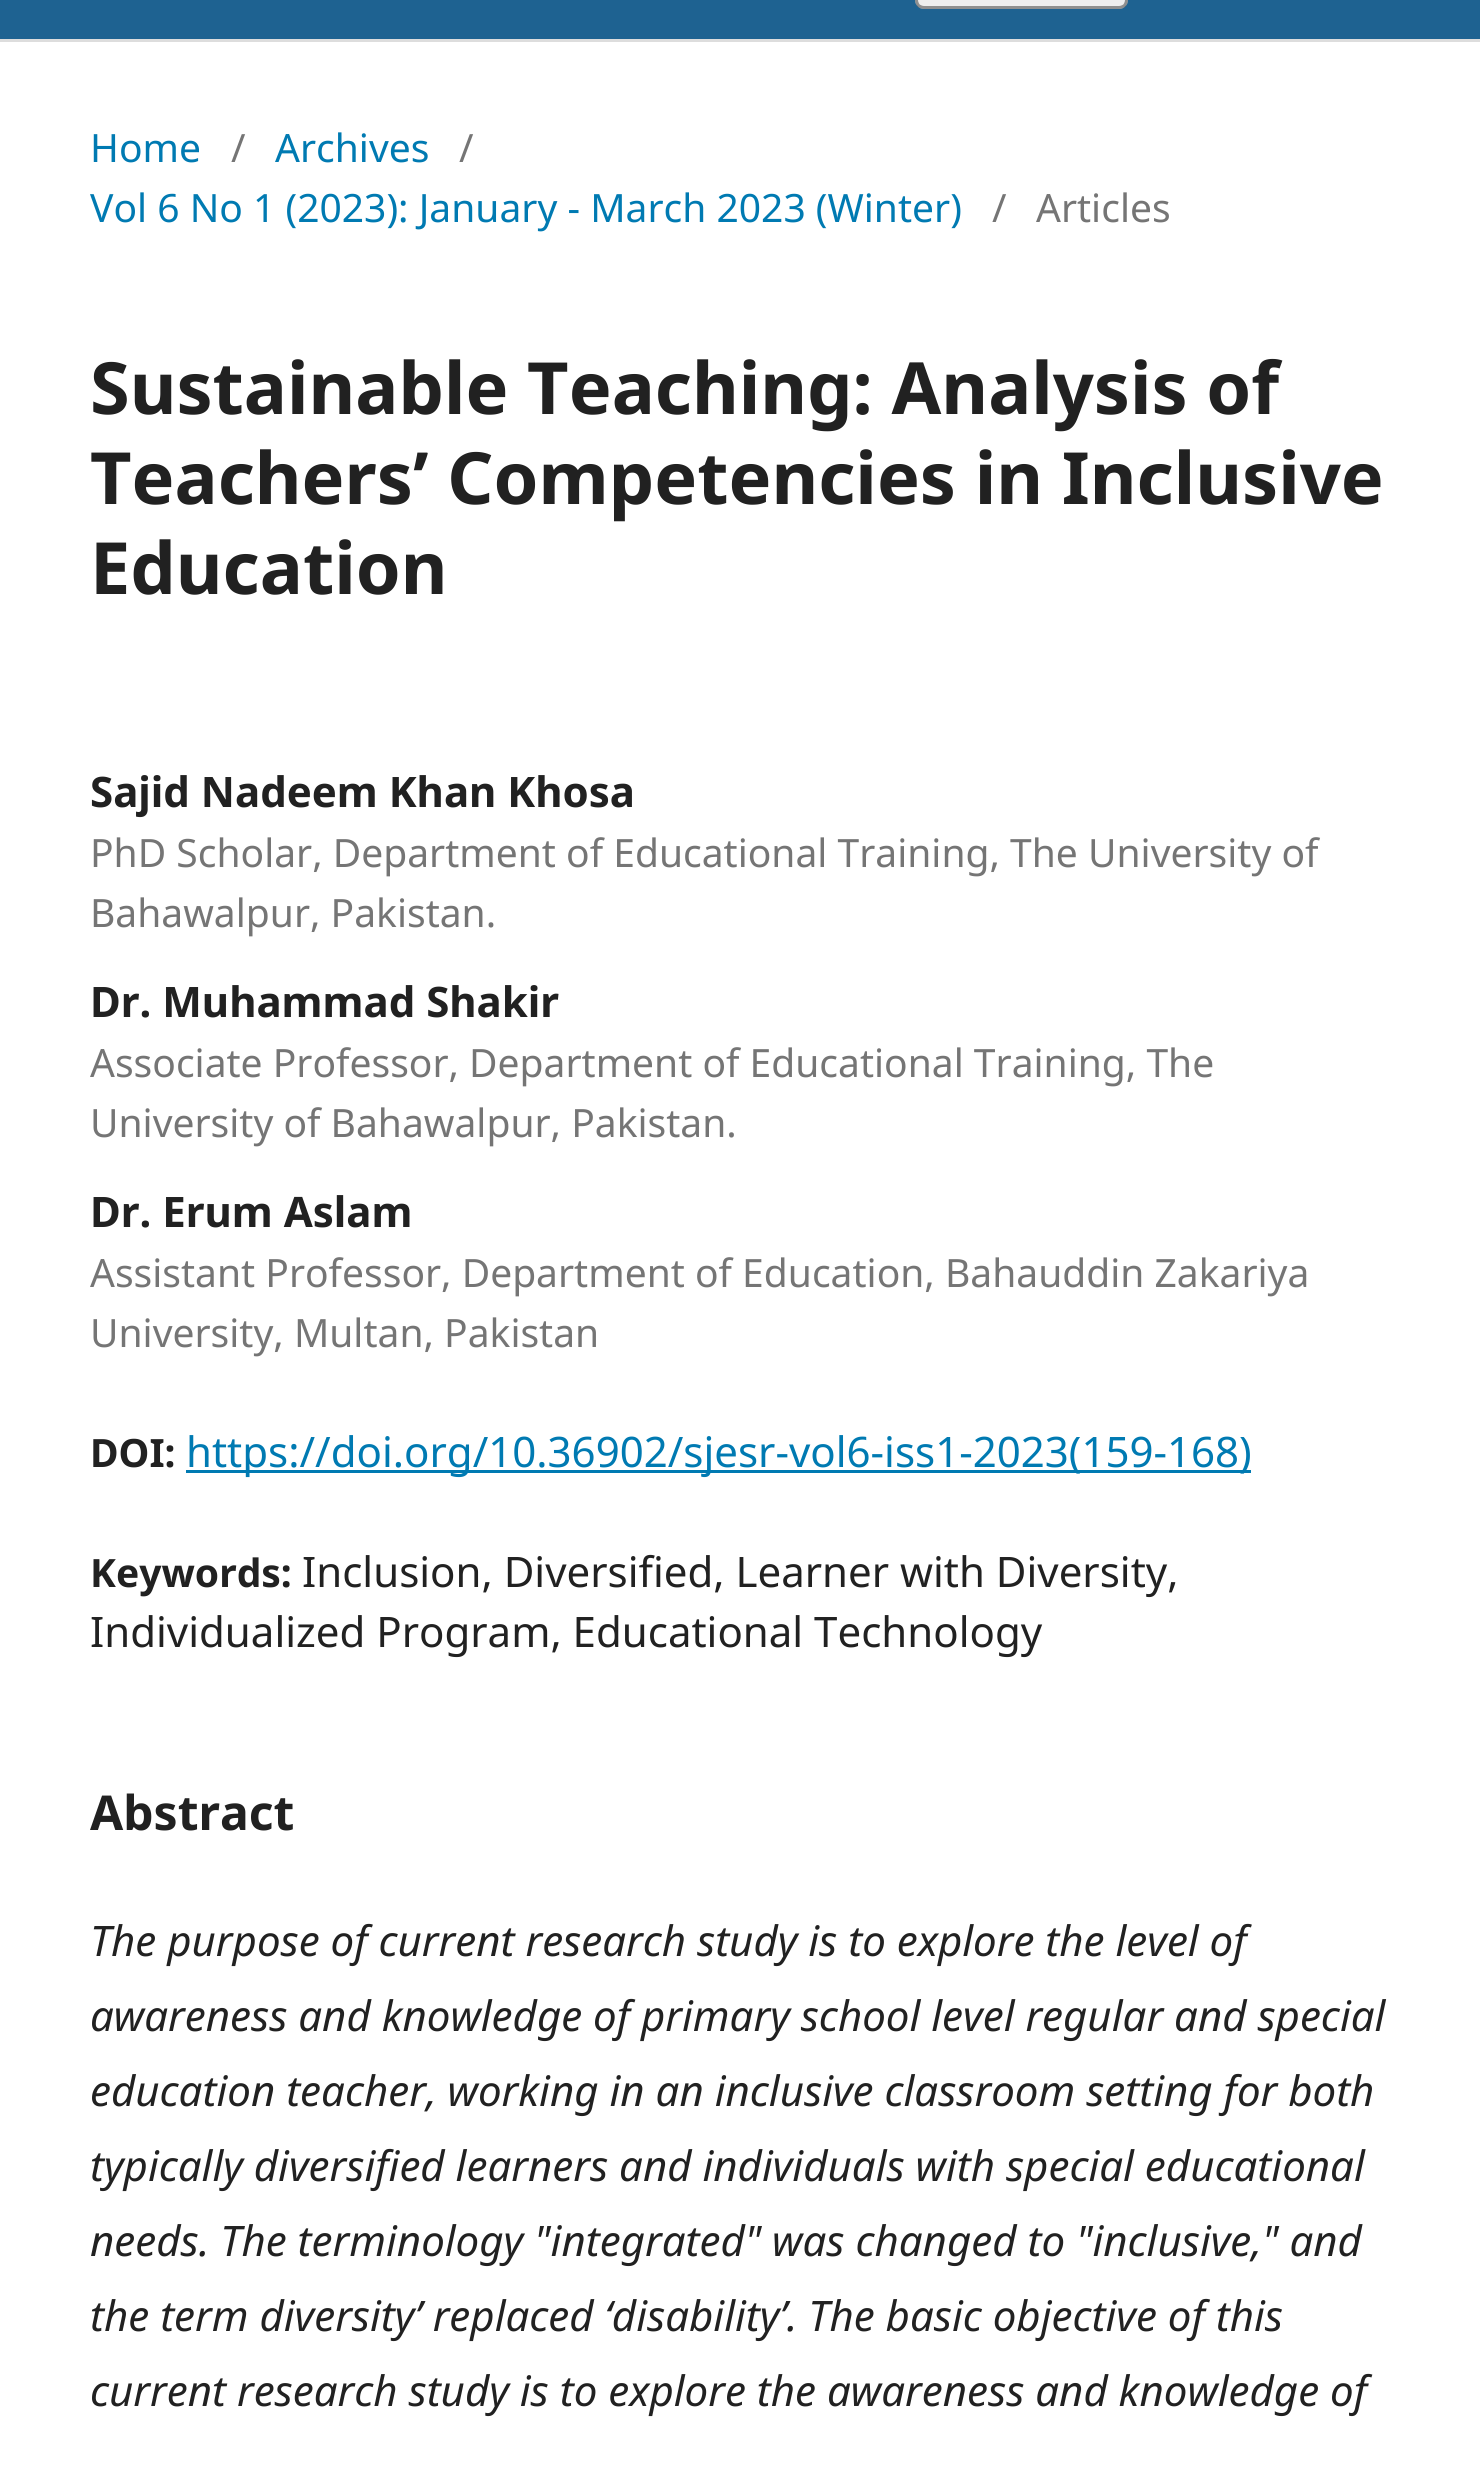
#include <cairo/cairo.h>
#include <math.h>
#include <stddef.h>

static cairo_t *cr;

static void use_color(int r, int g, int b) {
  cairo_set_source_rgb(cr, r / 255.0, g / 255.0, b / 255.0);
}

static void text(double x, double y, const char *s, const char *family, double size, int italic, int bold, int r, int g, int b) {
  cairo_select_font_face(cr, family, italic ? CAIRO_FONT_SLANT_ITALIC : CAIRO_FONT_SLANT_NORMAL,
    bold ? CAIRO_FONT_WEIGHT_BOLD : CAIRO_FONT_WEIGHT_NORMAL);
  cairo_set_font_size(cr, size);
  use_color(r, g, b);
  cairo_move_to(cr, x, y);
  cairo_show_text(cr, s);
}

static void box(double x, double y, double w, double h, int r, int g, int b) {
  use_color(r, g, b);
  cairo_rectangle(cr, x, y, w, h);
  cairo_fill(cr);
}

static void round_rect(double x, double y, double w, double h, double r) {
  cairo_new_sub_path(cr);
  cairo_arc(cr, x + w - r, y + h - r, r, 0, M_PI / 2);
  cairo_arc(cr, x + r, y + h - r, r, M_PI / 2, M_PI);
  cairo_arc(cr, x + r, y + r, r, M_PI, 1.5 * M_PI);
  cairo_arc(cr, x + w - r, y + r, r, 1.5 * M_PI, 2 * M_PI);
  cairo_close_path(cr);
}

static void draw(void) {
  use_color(255, 255, 255);
  cairo_paint(cr);
  box(0, 0, 1480, 39, 30, 98, 145);
  box(0, 39, 1480, 3, 221, 221, 221);
  use_color(238, 238, 238);
  round_rect(915, -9, 213, 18, 9);
  cairo_fill(cr);
  cairo_new_path(cr);
  cairo_move_to(cr, 1124.5, -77.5);
  cairo_curve_to(cr, 1125.5, -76, 1126.5, -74, 1126.5, -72);
  cairo_line_to(cr, 1126.5, 0);
  cairo_curve_to(cr, 1126.5, 2, 1125.5, 4, 1124.5, 5.5);
  cairo_curve_to(cr, 1123, 6.5, 1121, 7.5, 1119, 7.5);
  cairo_line_to(cr, 924, 7.5);
  cairo_curve_to(cr, 922, 7.5, 920, 6.5, 918.5, 5.5);
  cairo_curve_to(cr, 917.5, 4, 916.5, 2, 916.5, 0);
  cairo_line_to(cr, 916.5, -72);
  cairo_curve_to(cr, 916.5, -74, 917.5, -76, 918.5, -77.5);
  cairo_set_source_rgba(cr, 0, 0, 0, 0.4);
  cairo_set_line_width(cr, 3);
  cairo_stroke(cr);
  box(186, 1470, 1065, 3, 0, 122, 178);
  text(90, 162, "Home", "Noto Sans", 39, 0, 0, 0, 122, 178);
  text(231, 162, "/", "Noto Sans", 39, 0, 0, 117, 117, 117);
  text(275, 162, "Archives", "Noto Sans", 39, 0, 0, 0, 122, 178);
  text(459, 162, "/", "Noto Sans", 39, 0, 0, 117, 117, 117);
  text(90, 222, "Vol 6 No 1 (2023): January - March 2023 (Winter)", "Noto Sans", 39, 0, 0, 0, 122, 178);
  text(992, 222, "/", "Noto Sans", 39, 0, 0, 117, 117, 117);
  text(1036, 222, "Articles", "Noto Sans", 39, 0, 0, 117, 117, 117);
  text(90, 414, "Sustainable Teaching: Analysis of", "Noto Sans", 72, 0, 1, 33, 33, 33);
  text(90, 504, "Teachers’ Competencies in Inclusive", "Noto Sans", 72, 0, 1, 33, 33, 33);
  text(90, 594, "Education", "Noto Sans", 72, 0, 1, 33, 33, 33);
  text(90, 807, "Sajid Nadeem Khan Khosa", "Noto Sans", 42, 0, 1, 33, 33, 33);
  text(90, 867, "PhD Scholar, Department of Educational Training, The University of", "Noto Sans", 39, 0, 0, 117, 117, 117);
  text(90, 927, "Bahawalpur, Pakistan.", "Noto Sans", 39, 0, 0, 117, 117, 117);
  text(90, 1017, "Dr. Muhammad Shakir", "Noto Sans", 42, 0, 1, 33, 33, 33);
  text(90, 1077, "Associate Professor, Department of Educational Training, The", "Noto Sans", 39, 0, 0, 117, 117, 117);
  text(90, 1137, "University of Bahawalpur, Pakistan.", "Noto Sans", 39, 0, 0, 117, 117, 117);
  text(90, 1227, "Dr. Erum Aslam", "Noto Sans", 42, 0, 1, 33, 33, 33);
  text(90, 1287, "Assistant Professor, Department of Education, Bahauddin Zakariya", "Noto Sans", 39, 0, 0, 117, 117, 117);
  text(90, 1347, "University, Multan, Pakistan", "Noto Sans", 39, 0, 0, 117, 117, 117);
  text(90, 1467, "DOI:", "Noto Sans", 39, 0, 1, 33, 33, 33);
  text(186, 1467, "https://doi.org/10.36902/sjesr-vol6-iss1-2023(159-168)", "Noto Sans", 42, 0, 0, 0, 122, 178);
  text(90, 1587, "Keywords:", "Noto Sans", 39, 0, 1, 33, 33, 33);
  text(302, 1587, "Inclusion, Diversified, Learner with Diversity,", "Noto Sans", 42, 0, 0, 33, 33, 33);
  text(90, 1647, "Individualized Program, Educational Technology", "Noto Sans", 42, 0, 0, 33, 33, 33);
  text(90, 1830, "Abstract", "Noto Sans", 48, 0, 1, 33, 33, 33);
  text(90, 1956, "The purpose of current research study is to explore the level of", "Noto Sans", 42, 1, 0, 33, 33, 33);
  text(90, 2031, "awareness and knowledge of primary school level regular and special", "Noto Sans", 42, 1, 0, 33, 33, 33);
  text(90, 2106, "education teacher, working in an inclusive classroom setting for both", "Noto Sans", 42, 1, 0, 33, 33, 33);
  text(90, 2181, "typically diversified learners and individuals with special educational", "Noto Sans", 42, 1, 0, 33, 33, 33);
  text(90, 2256, "needs. The terminology \"integrated\" was changed to \"inclusive,\" and", "Noto Sans", 42, 1, 0, 33, 33, 33);
  text(90, 2331, "the term diversity’ replaced ‘disability’. The basic objective of this", "Noto Sans", 42, 1, 0, 33, 33, 33);
  text(90, 2406, "current research study is to explore the awareness and knowledge of", "Noto Sans", 42, 1, 0, 33, 33, 33);
}

int main(void) {
  cairo_surface_t *surface = cairo_image_surface_create(CAIRO_FORMAT_RGB24, 1480, 2472);
  cr = cairo_create(surface);
  cairo_font_options_t *options = cairo_font_options_create();
  cairo_font_options_set_hint_metrics(options, CAIRO_HINT_METRICS_OFF);
  cairo_font_options_set_hint_style(options, CAIRO_HINT_STYLE_NONE);
  cairo_set_font_options(cr, options);
  cairo_set_miter_limit(cr, 4);
  draw();
  cairo_surface_write_to_png(surface, "out.png");
  cairo_font_options_destroy(options);
  cairo_destroy(cr);
  cairo_surface_destroy(surface);
  return 0;
}
